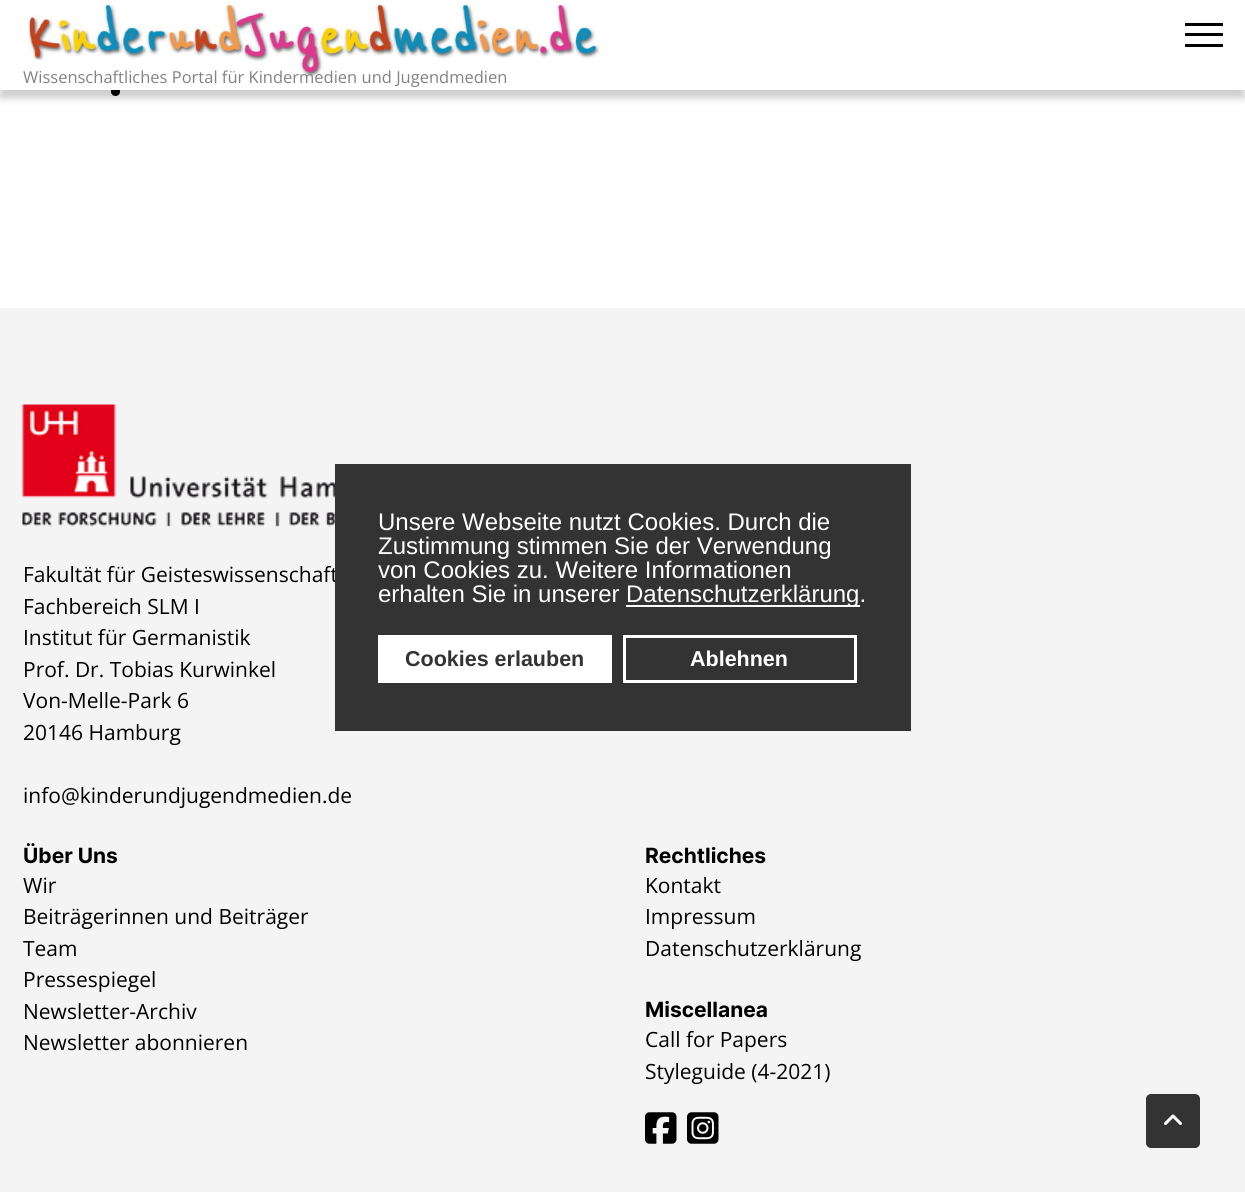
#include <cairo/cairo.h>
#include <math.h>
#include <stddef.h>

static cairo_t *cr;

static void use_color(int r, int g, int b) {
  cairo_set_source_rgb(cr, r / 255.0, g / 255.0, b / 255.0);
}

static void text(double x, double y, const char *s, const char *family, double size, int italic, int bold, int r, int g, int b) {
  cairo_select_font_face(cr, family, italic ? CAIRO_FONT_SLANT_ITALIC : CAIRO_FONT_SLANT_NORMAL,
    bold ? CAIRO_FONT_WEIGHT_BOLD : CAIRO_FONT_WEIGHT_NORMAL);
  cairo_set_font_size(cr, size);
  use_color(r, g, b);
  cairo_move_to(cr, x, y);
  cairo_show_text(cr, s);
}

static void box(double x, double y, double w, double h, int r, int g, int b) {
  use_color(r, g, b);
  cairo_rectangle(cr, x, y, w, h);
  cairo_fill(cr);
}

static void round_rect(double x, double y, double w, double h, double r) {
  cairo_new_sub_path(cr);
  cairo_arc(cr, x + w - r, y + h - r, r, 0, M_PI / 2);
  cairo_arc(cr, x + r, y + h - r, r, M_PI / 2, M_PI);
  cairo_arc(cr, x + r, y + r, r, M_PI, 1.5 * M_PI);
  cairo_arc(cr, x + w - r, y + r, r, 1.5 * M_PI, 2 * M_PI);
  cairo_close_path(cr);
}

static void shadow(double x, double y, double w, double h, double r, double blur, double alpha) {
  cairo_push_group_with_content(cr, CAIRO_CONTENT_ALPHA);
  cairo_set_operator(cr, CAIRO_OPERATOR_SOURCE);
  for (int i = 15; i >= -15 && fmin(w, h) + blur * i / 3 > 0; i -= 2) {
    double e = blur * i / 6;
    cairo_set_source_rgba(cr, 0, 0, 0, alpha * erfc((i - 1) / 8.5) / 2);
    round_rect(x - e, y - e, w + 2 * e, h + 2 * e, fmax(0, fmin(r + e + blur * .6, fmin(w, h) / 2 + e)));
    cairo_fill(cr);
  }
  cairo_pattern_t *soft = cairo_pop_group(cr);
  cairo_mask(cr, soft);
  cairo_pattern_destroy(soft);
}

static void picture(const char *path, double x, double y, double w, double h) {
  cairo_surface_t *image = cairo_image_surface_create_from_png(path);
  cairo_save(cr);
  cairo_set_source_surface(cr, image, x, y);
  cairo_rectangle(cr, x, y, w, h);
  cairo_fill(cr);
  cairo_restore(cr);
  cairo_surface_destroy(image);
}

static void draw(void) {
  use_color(255, 255, 255);
  cairo_paint(cr);
  use_color(0, 0, 0);
  cairo_arc(cr, 115.5, 91.5, 4.5, 0, 2 * M_PI);
  cairo_fill(cr);
  use_color(0, 0, 0);
  shadow(0, 8, 1245, 90, 0, 4, 0.2);
  box(0, 1, 1245, 89, 255, 255, 255);
  picture("img_01.png", 29, 1, 572, 78);
  box(1185, 23, 38, 3, 0, 0, 0);
  box(1185, 33, 38, 3, 0, 0, 0);
  box(1185, 44, 38, 3, 0, 0, 0);
  box(0, 308, 1245, 884, 244, 244, 244);
  picture("img_02.png", 22, 404, 313, 123);
  picture("img_03.png", 645, 1112, 32, 32);
  picture("img_04.png", 687, 1112, 32, 32);
  use_color(51, 51, 51);
  round_rect(1146, 1094, 54, 54, 5);
  cairo_fill(cr);
  picture("img_05.png", 1164, 1114, 18, 11);
  text(23, 83, "Wissenschaftliches Portal für Kindermedien und Jugendmedien", "Open Sans", 16.5, 0, 0, 130, 130, 130);
  text(23, 582, "Fakultät für Geisteswissenschaft", "Open Sans", 21, 0, 0, 0, 0, 0);
  text(23, 614, "Fachbereich SLM I", "Open Sans", 21, 0, 0, 0, 0, 0);
  text(23, 645, "Institut für Germanistik", "Open Sans", 21, 0, 0, 0, 0, 0);
  text(23, 677, "Prof. Dr. Tobias Kurwinkel", "Open Sans", 21, 0, 0, 0, 0, 0);
  text(23, 708, "Von-Melle-Park 6", "Open Sans", 21, 0, 0, 0, 0, 0);
  text(23, 740, "20146 Hamburg", "Open Sans", 21, 0, 0, 0, 0, 0);
  text(23, 803, "info@kinderundjugendmedien.de", "Open Sans", 21, 0, 0, 0, 0, 0);
  text(23, 863, "Über Uns", "Inter", 21, 0, 1, 0, 0, 0);
  text(23, 893, "Wir", "Open Sans", 21, 0, 0, 0, 0, 0);
  text(23, 924, "Beiträgerinnen und Beiträger", "Open Sans", 21, 0, 0, 0, 0, 0);
  text(23, 956, "Team", "Open Sans", 21, 0, 0, 0, 0, 0);
  text(23, 987, "Pressespiegel", "Open Sans", 21, 0, 0, 0, 0, 0);
  text(23, 1019, "Newsletter-Archiv", "Open Sans", 21, 0, 0, 0, 0, 0);
  text(23, 1050, "Newsletter abonnieren", "Open Sans", 21, 0, 0, 0, 0, 0);
  text(645, 863, "Rechtliches", "Inter", 21, 0, 1, 0, 0, 0);
  text(645, 893, "Kontakt", "Open Sans", 21, 0, 0, 0, 0, 0);
  text(645, 924, "Impressum", "Open Sans", 21, 0, 0, 0, 0, 0);
  text(645, 956, "Datenschutzerklärung", "Open Sans", 21, 0, 0, 0, 0, 0);
  text(645, 1017, "Miscellanea", "Inter", 21, 0, 1, 0, 0, 0);
  text(645, 1047, "Call for Papers", "Open Sans", 21, 0, 0, 0, 0, 0);
  text(645, 1079, "Styleguide (4-2021)", "Open Sans", 21, 0, 0, 0, 0, 0);
  box(335, 464, 576, 267, 51, 51, 51);
  text(378, 530, "Unsere Webseite nutzt Cookies. Durch die", "Liberation Sans", 24, 0, 0, 255, 255, 255);
  text(378, 554, "Zustimmung stimmen Sie der Verwendung", "Liberation Sans", 24, 0, 0, 255, 255, 255);
  text(378, 578, "von Cookies zu. Weitere Informationen", "Liberation Sans", 24, 0, 0, 255, 255, 255);
  text(378, 602, "erhalten Sie in unserer", "Liberation Sans", 24, 0, 0, 255, 255, 255);
  box(626, 605, 234, 2, 255, 255, 255);
  text(626, 602, "Datenschutzerklärung.", "Liberation Sans", 24, 0, 0, 255, 255, 255);
  box(378, 635, 234, 48, 255, 255, 255);
  text(405, 666, "Cookies erlauben", "Liberation Sans", 21.5, 0, 1, 51, 51, 51);
  cairo_rectangle(cr, 624.5, 636.5, 231, 45);
  use_color(255, 255, 255);
  cairo_set_line_width(cr, 3);
  cairo_stroke(cr);
  text(690, 666, "Ablehnen", "Liberation Sans", 21.5, 0, 1, 255, 255, 255);
}

int main(void) {
  cairo_surface_t *surface = cairo_image_surface_create(CAIRO_FORMAT_RGB24, 1245, 1192);
  cr = cairo_create(surface);
  cairo_font_options_t *options = cairo_font_options_create();
  cairo_font_options_set_hint_metrics(options, CAIRO_HINT_METRICS_OFF);
  cairo_font_options_set_hint_style(options, CAIRO_HINT_STYLE_NONE);
  cairo_set_font_options(cr, options);
  cairo_set_miter_limit(cr, 4);
  draw();
  cairo_surface_write_to_png(surface, "out.png");
  cairo_font_options_destroy(options);
  cairo_destroy(cr);
  cairo_surface_destroy(surface);
  return 0;
}
